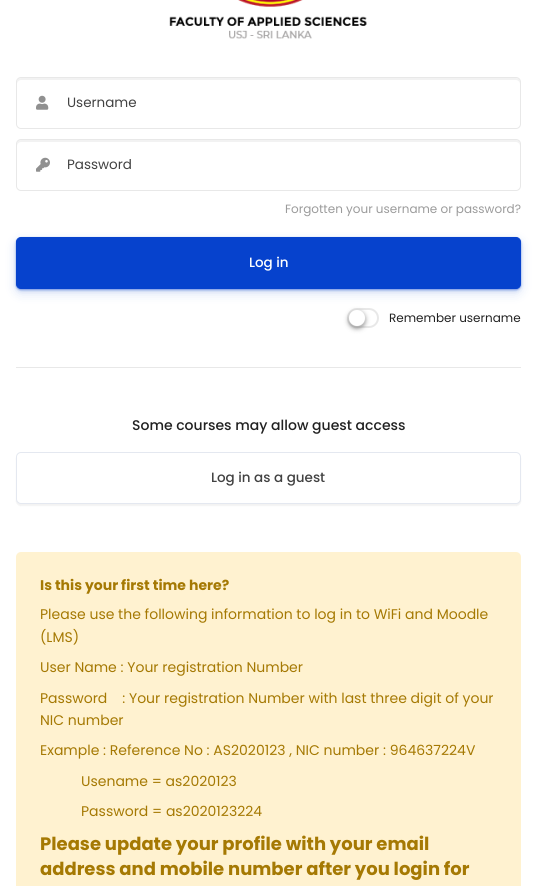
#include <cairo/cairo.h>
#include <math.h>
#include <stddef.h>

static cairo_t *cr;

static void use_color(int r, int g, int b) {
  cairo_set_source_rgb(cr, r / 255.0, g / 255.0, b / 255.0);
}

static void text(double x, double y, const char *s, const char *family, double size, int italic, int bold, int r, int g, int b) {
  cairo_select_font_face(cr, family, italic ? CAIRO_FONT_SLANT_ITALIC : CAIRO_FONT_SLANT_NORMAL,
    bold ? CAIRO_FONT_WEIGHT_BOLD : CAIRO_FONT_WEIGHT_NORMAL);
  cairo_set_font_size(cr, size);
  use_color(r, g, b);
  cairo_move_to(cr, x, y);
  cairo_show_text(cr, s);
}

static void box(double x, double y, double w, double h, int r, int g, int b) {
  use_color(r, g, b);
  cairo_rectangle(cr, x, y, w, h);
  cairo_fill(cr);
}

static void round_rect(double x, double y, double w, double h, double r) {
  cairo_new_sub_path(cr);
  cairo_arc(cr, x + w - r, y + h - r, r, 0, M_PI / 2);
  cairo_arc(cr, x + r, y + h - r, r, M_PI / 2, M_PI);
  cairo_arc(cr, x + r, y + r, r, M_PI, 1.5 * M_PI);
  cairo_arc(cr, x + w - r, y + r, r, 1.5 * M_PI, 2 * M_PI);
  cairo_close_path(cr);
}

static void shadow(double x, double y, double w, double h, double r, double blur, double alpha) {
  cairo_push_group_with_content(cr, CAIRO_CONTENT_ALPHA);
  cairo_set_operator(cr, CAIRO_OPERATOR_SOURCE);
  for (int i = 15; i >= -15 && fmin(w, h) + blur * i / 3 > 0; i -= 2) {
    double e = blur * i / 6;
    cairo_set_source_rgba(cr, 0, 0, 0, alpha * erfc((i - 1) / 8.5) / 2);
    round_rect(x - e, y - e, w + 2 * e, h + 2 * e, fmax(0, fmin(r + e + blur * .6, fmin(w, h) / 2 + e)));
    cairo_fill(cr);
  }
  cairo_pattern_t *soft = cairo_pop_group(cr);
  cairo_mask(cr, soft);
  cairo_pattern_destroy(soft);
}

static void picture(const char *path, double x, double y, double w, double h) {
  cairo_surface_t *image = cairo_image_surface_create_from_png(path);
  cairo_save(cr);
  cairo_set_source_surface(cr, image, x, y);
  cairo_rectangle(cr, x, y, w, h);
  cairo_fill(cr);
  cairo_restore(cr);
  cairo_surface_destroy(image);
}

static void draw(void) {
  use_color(255, 255, 255);
  cairo_paint(cr);
  picture("img_01.png", 169, 0, 198, 39);
  use_color(242, 242, 242);
  cairo_new_path(cr);
  cairo_move_to(cr, 21, 80);
  cairo_line_to(cr, 516, 80);
  cairo_curve_to(cr, 518, 80, 520, 82, 520, 84);
  cairo_curve_to(cr, 520, 81, 520, 78, 516, 78);
  cairo_line_to(cr, 21, 78);
  cairo_curve_to(cr, 17, 78, 17, 81, 17, 84);
  cairo_curve_to(cr, 17, 82, 19, 80, 21, 80);
  cairo_close_path(cr);
  cairo_fill(cr);
  round_rect(16.5, 77.5, 504, 51, 4.5);
  use_color(232, 232, 232);
  cairo_set_line_width(cr, 1);
  cairo_stroke(cr);
  picture("img_02.png", 36, 95, 13, 15);
  use_color(242, 242, 242);
  cairo_new_path(cr);
  cairo_move_to(cr, 21, 142);
  cairo_line_to(cr, 516, 142);
  cairo_curve_to(cr, 518, 142, 520, 144, 520, 146);
  cairo_curve_to(cr, 520, 143, 520, 140, 516, 140);
  cairo_line_to(cr, 21, 140);
  cairo_curve_to(cr, 17, 140, 17, 143, 17, 146);
  cairo_curve_to(cr, 17, 144, 19, 142, 21, 142);
  cairo_close_path(cr);
  cairo_fill(cr);
  round_rect(16.5, 139.5, 504, 51, 4.5);
  use_color(232, 232, 232);
  cairo_stroke(cr);
  picture("img_03.png", 36, 157, 14, 15);
  use_color(7, 66, 205);
  shadow(16, 241, 505, 52, 5, 6, 0.15);
  shadow(16, 239, 505, 52, 5, 2, 0.15);
  shadow(16, 238, 505, 52, 5, 1, 0.15);
  shadow(16, 238, 505, 52, 5, 1, 0.15);
  shadow(16, 238, 505, 52, 5, 0.5, 0.15);
  use_color(6, 66, 205);
  round_rect(16.5, 237.5, 504, 51, 4.5);
  cairo_fill_preserve(cr);
  cairo_stroke(cr);
  round_rect(348, 309, 30, 18, 9);
  use_color(232, 232, 232);
  cairo_set_line_width(cr, 2);
  cairo_stroke(cr);
  use_color(125, 125, 125);
  shadow(349, 312, 16, 16, 8, 2.5, 1);
  use_color(232, 232, 232);
  shadow(349, 310, 16, 16, 8, 1, 1);
  use_color(255, 255, 255);
  cairo_arc(cr, 357, 318, 8, 0, 2 * M_PI);
  cairo_fill(cr);
  box(16, 367, 505, 1, 232, 232, 232);
  use_color(0, 0, 0);
  shadow(16, 454, 505, 52, 5, 0.5, 0.05);
  use_color(255, 255, 255);
  round_rect(16.5, 452.5, 504, 51, 4.5);
  cairo_fill_preserve(cr);
  use_color(228, 232, 240);
  cairo_set_line_width(cr, 1);
  cairo_stroke(cr);
  use_color(255, 242, 208);
  round_rect(16, 552, 505, 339, 5);
  cairo_fill(cr);
  text(67, 107, "Username", "Poppins", 13.5, 0, 0, 66, 66, 66);
  text(67, 169, "Password", "Poppins", 13.5, 0, 0, 66, 66, 66);
  text(285, 213, "Forgotten your username or password?", "Poppins", 12, 0, 0, 155, 155, 155);
  text(249, 267, "Log in", "Poppins Medium", 13.5, 0, 0, 255, 255, 255);
  text(389, 322, "Remember username", "Poppins", 12, 0, 0, 33, 33, 33);
  text(132, 430, "Some courses may allow guest access", "Poppins Medium", 14, 0, 0, 33, 33, 33);
  text(211, 482, "Log in as a guest", "Poppins Medium", 13.5, 0, 0, 66, 66, 66);
  text(40, 590, "Is this your first time here?", "Poppins", 14, 0, 1, 165, 121, 3);
  text(40, 619, "Please use the following information to log in to WiFi and Moodle", "Poppins", 14, 0, 0, 165, 121, 3);
  text(40, 642, "(LMS)", "Poppins", 14, 0, 0, 165, 121, 3);
  text(40, 672, "User Name : Your registration Number", "Poppins", 14, 0, 0, 165, 121, 3);
  text(40, 703, "Password    : Your registration Number with last three digit of your", "Poppins", 14, 0, 0, 165, 121, 3);
  text(40, 725, "NIC number", "Poppins", 14, 0, 0, 165, 121, 3);
  text(40, 755, "Example : Reference No : AS2020123 , NIC number : 964637224V", "Poppins", 14, 0, 0, 165, 121, 3);
  text(81, 786, "Usename = as2020123", "Poppins", 14, 0, 0, 165, 121, 3);
  text(81, 816, "Password = as2020123224", "Poppins", 14, 0, 0, 165, 121, 3);
  text(40, 850, "Please update your profile with your email", "Poppins", 18, 0, 1, 165, 121, 3);
  text(40, 875, "address and mobile number after you login for", "Poppins", 18, 0, 1, 165, 121, 3);
}

int main(void) {
  cairo_surface_t *surface = cairo_image_surface_create(CAIRO_FORMAT_RGB24, 537, 886);
  cr = cairo_create(surface);
  cairo_font_options_t *options = cairo_font_options_create();
  cairo_font_options_set_hint_metrics(options, CAIRO_HINT_METRICS_OFF);
  cairo_font_options_set_hint_style(options, CAIRO_HINT_STYLE_NONE);
  cairo_set_font_options(cr, options);
  cairo_set_miter_limit(cr, 4);
  draw();
  cairo_surface_write_to_png(surface, "out.png");
  cairo_font_options_destroy(options);
  cairo_destroy(cr);
  cairo_surface_destroy(surface);
  return 0;
}
